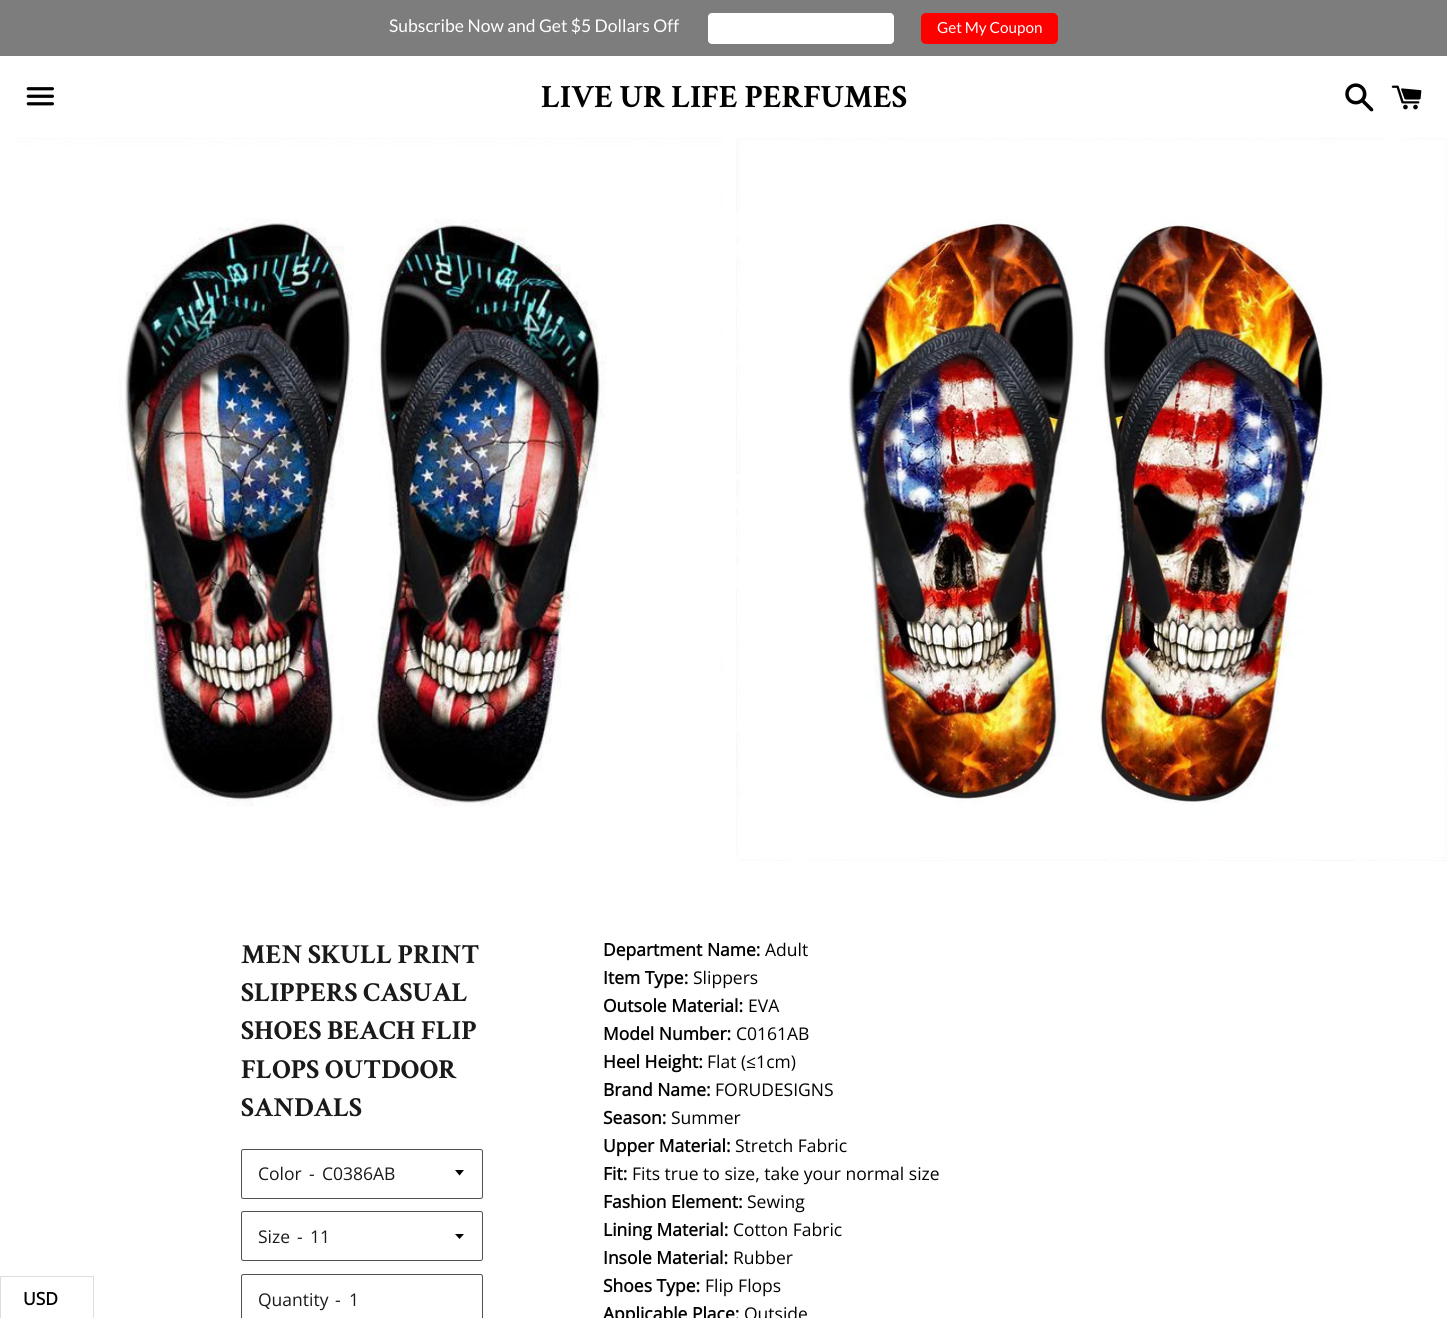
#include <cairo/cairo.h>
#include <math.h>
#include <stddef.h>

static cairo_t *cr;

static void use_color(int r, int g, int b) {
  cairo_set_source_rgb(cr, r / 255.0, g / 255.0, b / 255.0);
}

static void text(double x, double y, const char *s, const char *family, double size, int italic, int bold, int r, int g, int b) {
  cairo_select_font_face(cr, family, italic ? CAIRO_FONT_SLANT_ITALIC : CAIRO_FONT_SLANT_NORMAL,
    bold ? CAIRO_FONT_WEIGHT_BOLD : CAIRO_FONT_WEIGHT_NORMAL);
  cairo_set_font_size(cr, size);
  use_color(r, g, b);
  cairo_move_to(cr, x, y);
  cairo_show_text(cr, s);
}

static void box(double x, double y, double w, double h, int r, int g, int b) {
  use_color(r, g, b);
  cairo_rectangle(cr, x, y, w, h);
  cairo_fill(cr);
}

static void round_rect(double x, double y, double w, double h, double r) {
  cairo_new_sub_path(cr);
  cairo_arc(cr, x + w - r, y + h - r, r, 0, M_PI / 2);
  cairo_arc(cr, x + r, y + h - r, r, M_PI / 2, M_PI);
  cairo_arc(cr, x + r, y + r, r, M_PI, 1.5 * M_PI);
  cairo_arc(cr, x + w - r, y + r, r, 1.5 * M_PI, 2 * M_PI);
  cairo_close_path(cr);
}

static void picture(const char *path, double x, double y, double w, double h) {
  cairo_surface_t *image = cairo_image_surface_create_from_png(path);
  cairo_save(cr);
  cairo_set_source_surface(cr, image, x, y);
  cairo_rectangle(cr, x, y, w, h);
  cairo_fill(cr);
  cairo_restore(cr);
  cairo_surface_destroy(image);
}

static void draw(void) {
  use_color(255, 255, 255);
  cairo_paint(cr);
  box(0, 0, 1447, 56, 125, 125, 125);
  use_color(255, 255, 255);
  round_rect(708, 13, 186, 31, 4);
  cairo_fill(cr);
  use_color(255, 0, 0);
  round_rect(921, 13, 137, 31, 5);
  cairo_fill(cr);
  picture("img_01.png", 26, 87, 28, 19);
  picture("img_02.png", 1345, 83, 29, 29);
  picture("img_03.png", 1391, 85, 31, 25);
  cairo_rectangle(cr, 0.5, 1276.5, 93, 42);
  use_color(221, 221, 221);
  cairo_set_line_width(cr, 1);
  cairo_stroke(cr);
  picture("img_04.png", 18, 138, 705, 669);
  picture("img_05.png", 736, 138, 711, 723);
  round_rect(241.5, 1149.5, 241, 49, 2);
  use_color(84, 78, 78);
  cairo_stroke(cr);
  use_color(3, 0, 0);
  cairo_new_path(cr);
  cairo_move_to(cr, 455, 1170);
  cairo_line_to(cr, 459.5, 1175.5);
  cairo_line_to(cr, 464, 1170);
  cairo_close_path(cr);
  cairo_fill(cr);
  round_rect(241.5, 1211.5, 241, 49, 2);
  use_color(84, 78, 78);
  cairo_stroke(cr);
  use_color(3, 0, 0);
  cairo_new_path(cr);
  cairo_move_to(cr, 455, 1234);
  cairo_line_to(cr, 459.5, 1239);
  cairo_line_to(cr, 464, 1234);
  cairo_close_path(cr);
  cairo_fill(cr);
  round_rect(241.5, 1274.5, 241, 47, 2);
  use_color(84, 78, 78);
  cairo_stroke(cr);
  text(389, 32, "Subscribe Now and Get $5 Dollars Off", "Lato", 17.5, 0, 0, 255, 255, 255);
  text(937, 33, "Get My Coupon", "Lato", 15.25, 0, 0, 255, 255, 255);
  text(541, 107, "LIVE UR LIFE PERFUMES", "Crimson Text", 32.5, 0, 1, 3, 0, 0);
  text(23, 1305, "USD", "Open Sans", 17.5, 0, 1, 3, 0, 0);
  text(241, 963, "MEN SKULL PRINT", "Crimson Text", 27.5, 0, 1, 26, 26, 26);
  text(241, 1001, "SLIPPERS CASUAL", "Crimson Text", 27.5, 0, 1, 26, 26, 26);
  text(241, 1039, "SHOES BEACH FLIP", "Crimson Text", 27.5, 0, 1, 26, 26, 26);
  text(241, 1078, "FLOPS OUTDOOR", "Crimson Text", 27.5, 0, 1, 26, 26, 26);
  text(241, 1116, "SANDALS", "Crimson Text", 27.5, 0, 1, 26, 26, 26);
  text(258, 1180, "Color", "Open Sans", 17.5, 0, 0, 26, 26, 26);
  text(309, 1180, "-", "Open Sans", 17.5, 0, 0, 26, 26, 26);
  text(322, 1180, "C0386AB", "Open Sans", 17.5, 0, 0, 26, 26, 26);
  text(258, 1243, "Size", "Open Sans", 17.5, 0, 0, 26, 26, 26);
  text(297, 1243, "-", "Open Sans", 17.5, 0, 0, 26, 26, 26);
  text(310, 1243, "11", "Open Sans", 17.5, 0, 0, 26, 26, 26);
  text(258, 1306, "Quantity", "Open Sans", 17.5, 0, 0, 26, 26, 26);
  text(335, 1306, "-", "Open Sans", 17.5, 0, 0, 26, 26, 26);
  text(349, 1306, "1", "Open Sans", 17.5, 0, 0, 26, 26, 26);
  text(603, 956, "Department Name:", "Open Sans", 17.5, 0, 1, 3, 0, 0);
  text(765, 956, "Adult", "Open Sans", 17.5, 0, 0, 3, 0, 0);
  text(603, 984, "Item Type:", "Open Sans", 17.5, 0, 1, 3, 0, 0);
  text(693, 984, "Slippers", "Open Sans", 17.5, 0, 0, 3, 0, 0);
  text(603, 1012, "Outsole Material:", "Open Sans", 17.5, 0, 1, 3, 0, 0);
  text(748, 1012, "EVA", "Open Sans", 17.5, 0, 0, 3, 0, 0);
  text(603, 1040, "Model Number:", "Open Sans", 17.5, 0, 1, 3, 0, 0);
  text(736, 1040, "C0161AB", "Open Sans", 17.5, 0, 0, 3, 0, 0);
  text(603, 1068, "Heel Height:", "Open Sans", 17.5, 0, 1, 3, 0, 0);
  text(707, 1068, "Flat (≤1cm)", "Open Sans", 17.5, 0, 0, 3, 0, 0);
  text(603, 1096, "Brand Name:", "Open Sans", 17.5, 0, 1, 3, 0, 0);
  text(715, 1096, "FORUDESIGNS", "Open Sans", 17.5, 0, 0, 3, 0, 0);
  text(603, 1124, "Season:", "Open Sans", 17.5, 0, 1, 3, 0, 0);
  text(671, 1124, "Summer", "Open Sans", 17.5, 0, 0, 3, 0, 0);
  text(603, 1152, "Upper Material:", "Open Sans", 17.5, 0, 1, 3, 0, 0);
  text(735, 1152, "Stretch Fabric", "Open Sans", 17.5, 0, 0, 3, 0, 0);
  text(603, 1180, "Fit:", "Open Sans", 17.5, 0, 1, 3, 0, 0);
  text(632, 1180, "Fits true to size, take your normal size", "Open Sans", 17.5, 0, 0, 3, 0, 0);
  text(603, 1208, "Fashion Element:", "Open Sans", 17.5, 0, 1, 3, 0, 0);
  text(747, 1208, "Sewing", "Open Sans", 17.5, 0, 0, 3, 0, 0);
  text(603, 1236, "Lining Material:", "Open Sans", 17.5, 0, 1, 3, 0, 0);
  text(733, 1236, "Cotton Fabric", "Open Sans", 17.5, 0, 0, 3, 0, 0);
  text(603, 1264, "Insole Material:", "Open Sans", 17.5, 0, 1, 3, 0, 0);
  text(733, 1264, "Rubber", "Open Sans", 17.5, 0, 0, 3, 0, 0);
  text(603, 1292, "Shoes Type:", "Open Sans", 17.5, 0, 1, 3, 0, 0);
  text(705, 1292, "Flip Flops", "Open Sans", 17.5, 0, 0, 3, 0, 0);
  text(603, 1320, "Applicable Place:", "Open Sans", 17.5, 0, 1, 3, 0, 0);
  text(744, 1320, "Outside", "Open Sans", 17.5, 0, 0, 3, 0, 0);
}

int main(void) {
  cairo_surface_t *surface = cairo_image_surface_create(CAIRO_FORMAT_RGB24, 1447, 1318);
  cr = cairo_create(surface);
  cairo_font_options_t *options = cairo_font_options_create();
  cairo_font_options_set_hint_metrics(options, CAIRO_HINT_METRICS_OFF);
  cairo_font_options_set_hint_style(options, CAIRO_HINT_STYLE_NONE);
  cairo_set_font_options(cr, options);
  cairo_set_miter_limit(cr, 4);
  draw();
  cairo_surface_write_to_png(surface, "out.png");
  cairo_font_options_destroy(options);
  cairo_destroy(cr);
  cairo_surface_destroy(surface);
  return 0;
}
